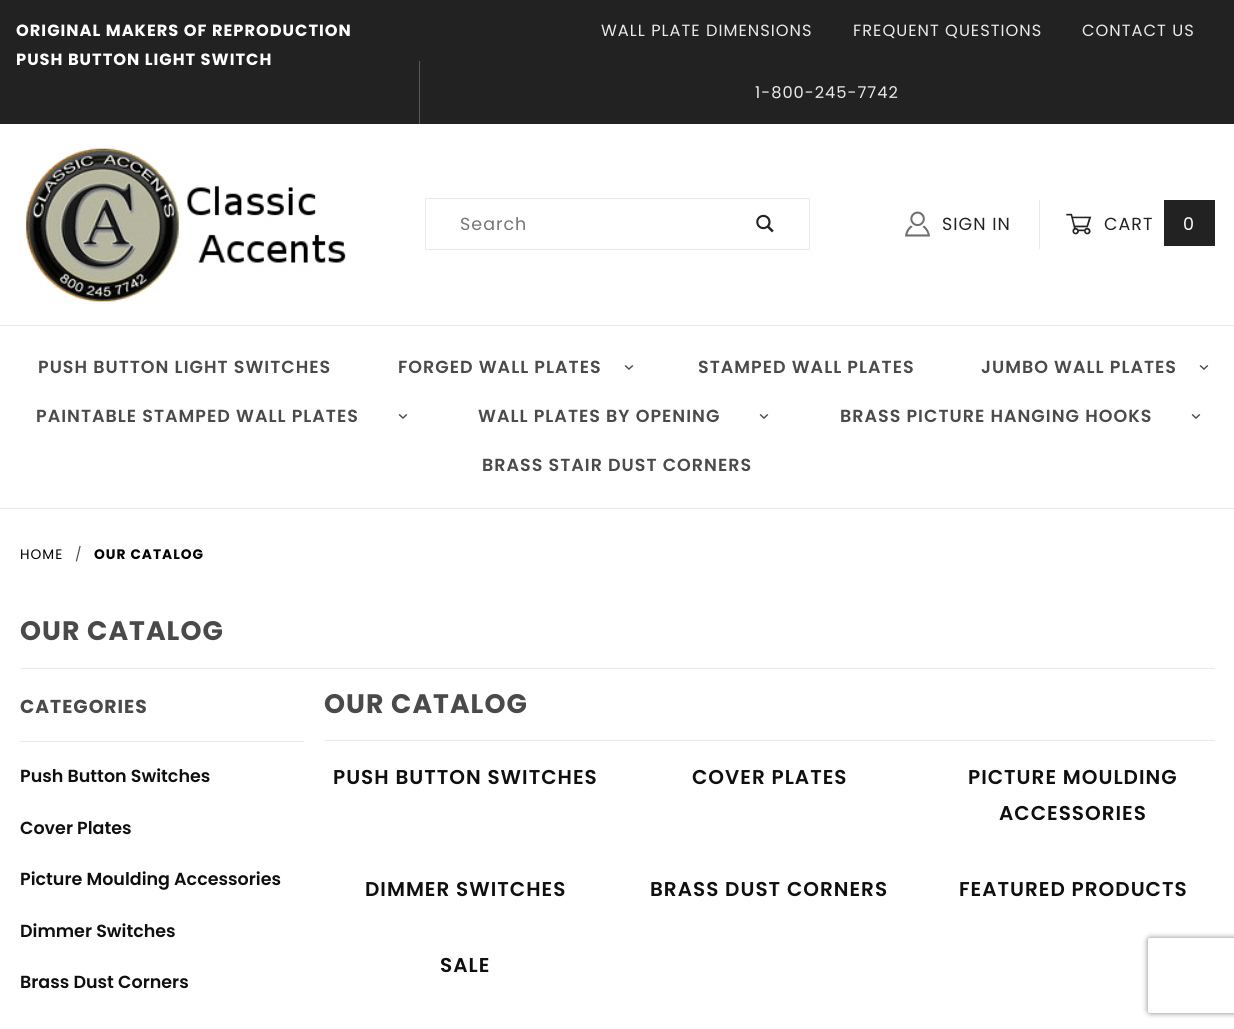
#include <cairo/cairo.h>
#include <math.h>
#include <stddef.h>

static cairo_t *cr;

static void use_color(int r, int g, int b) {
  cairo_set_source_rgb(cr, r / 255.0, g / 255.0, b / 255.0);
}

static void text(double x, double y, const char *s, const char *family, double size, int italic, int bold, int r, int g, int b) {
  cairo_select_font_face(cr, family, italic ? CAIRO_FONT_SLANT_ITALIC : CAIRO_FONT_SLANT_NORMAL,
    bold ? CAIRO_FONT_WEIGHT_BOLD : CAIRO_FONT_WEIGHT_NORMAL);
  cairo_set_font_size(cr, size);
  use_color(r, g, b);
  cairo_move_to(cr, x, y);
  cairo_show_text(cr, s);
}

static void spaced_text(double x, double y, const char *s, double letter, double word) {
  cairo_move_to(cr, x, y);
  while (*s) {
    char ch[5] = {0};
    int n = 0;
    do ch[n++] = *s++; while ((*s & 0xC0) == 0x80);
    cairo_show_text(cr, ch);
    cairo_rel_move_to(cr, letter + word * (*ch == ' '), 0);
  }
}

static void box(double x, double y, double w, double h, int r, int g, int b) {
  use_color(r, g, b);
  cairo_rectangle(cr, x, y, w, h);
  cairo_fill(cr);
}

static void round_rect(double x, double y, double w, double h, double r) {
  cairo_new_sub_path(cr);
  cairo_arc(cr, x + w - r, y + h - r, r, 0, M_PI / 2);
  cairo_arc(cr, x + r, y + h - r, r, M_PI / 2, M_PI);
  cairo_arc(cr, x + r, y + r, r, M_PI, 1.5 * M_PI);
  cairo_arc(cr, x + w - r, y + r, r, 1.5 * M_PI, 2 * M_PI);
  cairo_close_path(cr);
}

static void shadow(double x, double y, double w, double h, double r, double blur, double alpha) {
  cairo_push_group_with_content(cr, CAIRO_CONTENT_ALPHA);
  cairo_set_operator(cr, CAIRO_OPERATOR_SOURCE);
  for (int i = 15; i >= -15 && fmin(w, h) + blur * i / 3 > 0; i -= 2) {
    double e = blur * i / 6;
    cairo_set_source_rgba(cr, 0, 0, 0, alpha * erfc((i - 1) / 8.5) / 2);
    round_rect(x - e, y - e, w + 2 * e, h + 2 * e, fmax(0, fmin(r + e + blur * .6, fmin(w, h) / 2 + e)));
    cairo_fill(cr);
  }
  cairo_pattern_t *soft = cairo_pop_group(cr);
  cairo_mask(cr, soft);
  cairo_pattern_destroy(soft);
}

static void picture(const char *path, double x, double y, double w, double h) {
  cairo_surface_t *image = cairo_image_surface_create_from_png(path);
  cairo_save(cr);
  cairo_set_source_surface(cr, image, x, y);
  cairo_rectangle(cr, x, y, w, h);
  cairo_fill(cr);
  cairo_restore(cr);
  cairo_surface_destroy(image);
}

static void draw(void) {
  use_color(255, 255, 255);
  cairo_paint(cr);
  box(0, 325, 1234, 1, 234, 234, 234);
  box(0, 0, 1234, 124, 34, 34, 34);
  box(419, 61, 1, 63, 90, 90, 90);
  picture("img_01.png", 26, 148, 320, 154);
  cairo_rectangle(cr, 425.5, 198.5, 384, 51);
  use_color(234, 234, 234);
  cairo_set_line_width(cr, 1);
  cairo_stroke(cr);
  picture("img_02.png", 756, 214, 18, 19);
  box(1039, 200, 1, 49, 234, 234, 234);
  picture("img_03.png", 905, 211, 25, 26);
  picture("img_04.png", 1066, 213, 26, 22);
  box(1164, 200, 51, 46, 34, 34, 34);
  box(0, 508, 1234, 1, 234, 234, 234);
  box(20, 668, 1195, 1, 234, 234, 234);
  box(20, 741, 284, 1, 234, 234, 234);
  box(324, 740, 891, 1, 234, 234, 234);
  cairo_save(cr);
  cairo_set_fill_rule(cr, CAIRO_FILL_RULE_EVEN_ODD);
  cairo_new_path(cr);
  cairo_move_to(cr, 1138, 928);
  cairo_line_to(cr, 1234, 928);
  cairo_line_to(cr, 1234, 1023);
  cairo_line_to(cr, 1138, 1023);
  cairo_close_path(cr);
  cairo_move_to(cr, 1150.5, 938);
  cairo_line_to(cr, 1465.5, 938);
  cairo_curve_to(cr, 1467, 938, 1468, 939, 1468, 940.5);
  cairo_line_to(cr, 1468, 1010.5);
  cairo_curve_to(cr, 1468, 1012, 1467, 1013, 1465.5, 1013);
  cairo_line_to(cr, 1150.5, 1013);
  cairo_curve_to(cr, 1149, 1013, 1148, 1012, 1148, 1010.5);
  cairo_line_to(cr, 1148, 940.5);
  cairo_curve_to(cr, 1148, 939, 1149, 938, 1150.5, 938);
  cairo_close_path(cr);
  cairo_clip(cr);
  use_color(128, 128, 128);
  shadow(1148, 938, 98, 75, 2.5, 3, 1);
  cairo_restore(cr);
  cairo_select_font_face(cr, "Poppins", CAIRO_FONT_SLANT_NORMAL, CAIRO_FONT_WEIGHT_BOLD);
  cairo_set_font_size(cr, 16.25);
  use_color(255, 255, 255);
  spaced_text(16, 36, "ORIGINAL MAKERS OF REPRODUCTION", 1, 0);
  spaced_text(16, 65, "PUSH BUTTON LIGHT SWITCH", 1, 0);
  cairo_select_font_face(cr, "Poppins", CAIRO_FONT_SLANT_NORMAL, CAIRO_FONT_WEIGHT_NORMAL);
  use_color(234, 234, 234);
  spaced_text(601, 36, "WALL PLATE DIMENSIONS", 1, 0);
  spaced_text(853, 36, "FREQUENT QUESTIONS", 1, 0);
  spaced_text(1082, 36, "CONTACT US", 1, 0);
  spaced_text(755, 98, "1-800-245-7742", 1, 0);
  cairo_set_font_size(cr, 17.5);
  use_color(117, 117, 117);
  spaced_text(460, 230, "Search", 1, 0);
  use_color(34, 34, 34);
  spaced_text(942, 230, "SIGN IN", 1, 0);
  spaced_text(1104, 230, "CART", 1, 0);
  use_color(255, 255, 255);
  spaced_text(1183, 230, "0", 1, 0);
  cairo_select_font_face(cr, "Poppins SemiBold", CAIRO_FONT_SLANT_NORMAL, CAIRO_FONT_WEIGHT_NORMAL);
  use_color(74, 74, 74);
  spaced_text(38, 373, "PUSH BUTTON LIGHT SWITCHES", 1, 0);
  spaced_text(398, 373, "FORGED WALL PLATES", 1, 0);
  cairo_select_font_face(cr, "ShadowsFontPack", CAIRO_FONT_SLANT_NORMAL, CAIRO_FONT_WEIGHT_NORMAL);
  cairo_set_font_size(cr, 9);
  cairo_save(cr);
  cairo_translate(cr, 625, 363);
  cairo_rotate(cr, 90 * M_PI / 180);
  spaced_text(0, 0, "3", 1, 0);
  cairo_restore(cr);
  cairo_select_font_face(cr, "Poppins SemiBold", CAIRO_FONT_SLANT_NORMAL, CAIRO_FONT_WEIGHT_NORMAL);
  cairo_set_font_size(cr, 17.5);
  spaced_text(698, 373, "STAMPED WALL PLATES", 1, 0);
  spaced_text(981, 373, "JUMBO WALL PLATES", 1, 0);
  cairo_select_font_face(cr, "ShadowsFontPack", CAIRO_FONT_SLANT_NORMAL, CAIRO_FONT_WEIGHT_NORMAL);
  cairo_set_font_size(cr, 9);
  cairo_save(cr);
  cairo_translate(cr, 1200, 363);
  cairo_rotate(cr, 90 * M_PI / 180);
  spaced_text(0, 0, "3", 1, 0);
  cairo_restore(cr);
  cairo_select_font_face(cr, "Poppins SemiBold", CAIRO_FONT_SLANT_NORMAL, CAIRO_FONT_WEIGHT_NORMAL);
  cairo_set_font_size(cr, 17.5);
  spaced_text(36, 422, "PAINTABLE STAMPED WALL PLATES", 1, 0);
  cairo_select_font_face(cr, "ShadowsFontPack", CAIRO_FONT_SLANT_NORMAL, CAIRO_FONT_WEIGHT_NORMAL);
  cairo_set_font_size(cr, 9);
  cairo_save(cr);
  cairo_translate(cr, 399, 412);
  cairo_rotate(cr, 90 * M_PI / 180);
  spaced_text(0, 0, "3", 1, 0);
  cairo_restore(cr);
  cairo_select_font_face(cr, "Poppins SemiBold", CAIRO_FONT_SLANT_NORMAL, CAIRO_FONT_WEIGHT_NORMAL);
  cairo_set_font_size(cr, 17.5);
  spaced_text(478, 422, "WALL PLATES BY OPENING", 1, 0);
  cairo_select_font_face(cr, "ShadowsFontPack", CAIRO_FONT_SLANT_NORMAL, CAIRO_FONT_WEIGHT_NORMAL);
  cairo_set_font_size(cr, 9);
  cairo_save(cr);
  cairo_translate(cr, 760, 412);
  cairo_rotate(cr, 90 * M_PI / 180);
  spaced_text(0, 0, "3", 1, 0);
  cairo_restore(cr);
  cairo_select_font_face(cr, "Poppins SemiBold", CAIRO_FONT_SLANT_NORMAL, CAIRO_FONT_WEIGHT_NORMAL);
  cairo_set_font_size(cr, 17.5);
  spaced_text(840, 422, "BRASS PICTURE HANGING HOOKS", 1, 0);
  cairo_select_font_face(cr, "ShadowsFontPack", CAIRO_FONT_SLANT_NORMAL, CAIRO_FONT_WEIGHT_NORMAL);
  cairo_set_font_size(cr, 9);
  cairo_save(cr);
  cairo_translate(cr, 1192, 412);
  cairo_rotate(cr, 90 * M_PI / 180);
  spaced_text(0, 0, "3", 1, 0);
  cairo_restore(cr);
  cairo_select_font_face(cr, "Poppins SemiBold", CAIRO_FONT_SLANT_NORMAL, CAIRO_FONT_WEIGHT_NORMAL);
  cairo_set_font_size(cr, 17.5);
  spaced_text(482, 471, "BRASS STAIR DUST CORNERS", 1, 0);
  cairo_select_font_face(cr, "Poppins", CAIRO_FONT_SLANT_NORMAL, CAIRO_FONT_WEIGHT_NORMAL);
  cairo_set_font_size(cr, 13.75);
  use_color(0, 0, 0);
  spaced_text(20, 559, "HOME", 1, 0);
  use_color(74, 74, 74);
  spaced_text(75, 559, "/", 1, 0);
  cairo_select_font_face(cr, "Poppins", CAIRO_FONT_SLANT_NORMAL, CAIRO_FONT_WEIGHT_BOLD);
  use_color(0, 0, 0);
  spaced_text(94, 559, "OUR CATALOG", 1, 0);
  cairo_set_font_size(cr, 26.75);
  use_color(74, 74, 74);
  spaced_text(20, 640, "OUR CATALOG", 1, 0);
  cairo_set_font_size(cr, 18.75);
  spaced_text(20, 713, "CATEGORIES", 1, 0);
  text(20, 782, "Push Button Switches", "Poppins SemiBold", 17.5, 0, 0, 15, 15, 15);
  text(20, 834, "Cover Plates", "Poppins SemiBold", 17.5, 0, 0, 15, 15, 15);
  text(20, 885, "Picture Moulding Accessories", "Poppins SemiBold", 17.5, 0, 0, 15, 15, 15);
  text(20, 937, "Dimmer Switches", "Poppins SemiBold", 17.5, 0, 0, 15, 15, 15);
  text(20, 988, "Brass Dust Corners", "Poppins SemiBold", 17.5, 0, 0, 15, 15, 15);
  cairo_select_font_face(cr, "Poppins", CAIRO_FONT_SLANT_NORMAL, CAIRO_FONT_WEIGHT_BOLD);
  cairo_set_font_size(cr, 26.75);
  use_color(74, 74, 74);
  spaced_text(324, 713, "OUR CATALOG", 1, 0);
  cairo_select_font_face(cr, "Poppins SemiBold", CAIRO_FONT_SLANT_NORMAL, CAIRO_FONT_WEIGHT_NORMAL);
  cairo_set_font_size(cr, 20);
  use_color(15, 15, 15);
  spaced_text(333, 784, "PUSH BUTTON SWITCHES", 1, 0);
  spaced_text(692, 784, "COVER PLATES", 1, 0);
  spaced_text(968, 784, "PICTURE MOULDING", 1, 0);
  spaced_text(999, 820, "ACCESSORIES", 1, 0);
  spaced_text(365, 896, "DIMMER SWITCHES", 1, 0);
  spaced_text(650, 896, "BRASS DUST CORNERS", 1, 0);
  spaced_text(959, 896, "FEATURED PRODUCTS", 1, 0);
  spaced_text(440, 972, "SALE", 1, 0);
}

int main(void) {
  cairo_surface_t *surface = cairo_image_surface_create(CAIRO_FORMAT_RGB24, 1234, 1029);
  cr = cairo_create(surface);
  cairo_font_options_t *options = cairo_font_options_create();
  cairo_font_options_set_hint_metrics(options, CAIRO_HINT_METRICS_OFF);
  cairo_font_options_set_hint_style(options, CAIRO_HINT_STYLE_NONE);
  cairo_set_font_options(cr, options);
  cairo_set_miter_limit(cr, 4);
  draw();
  cairo_surface_write_to_png(surface, "out.png");
  cairo_font_options_destroy(options);
  cairo_destroy(cr);
  cairo_surface_destroy(surface);
  return 0;
}
